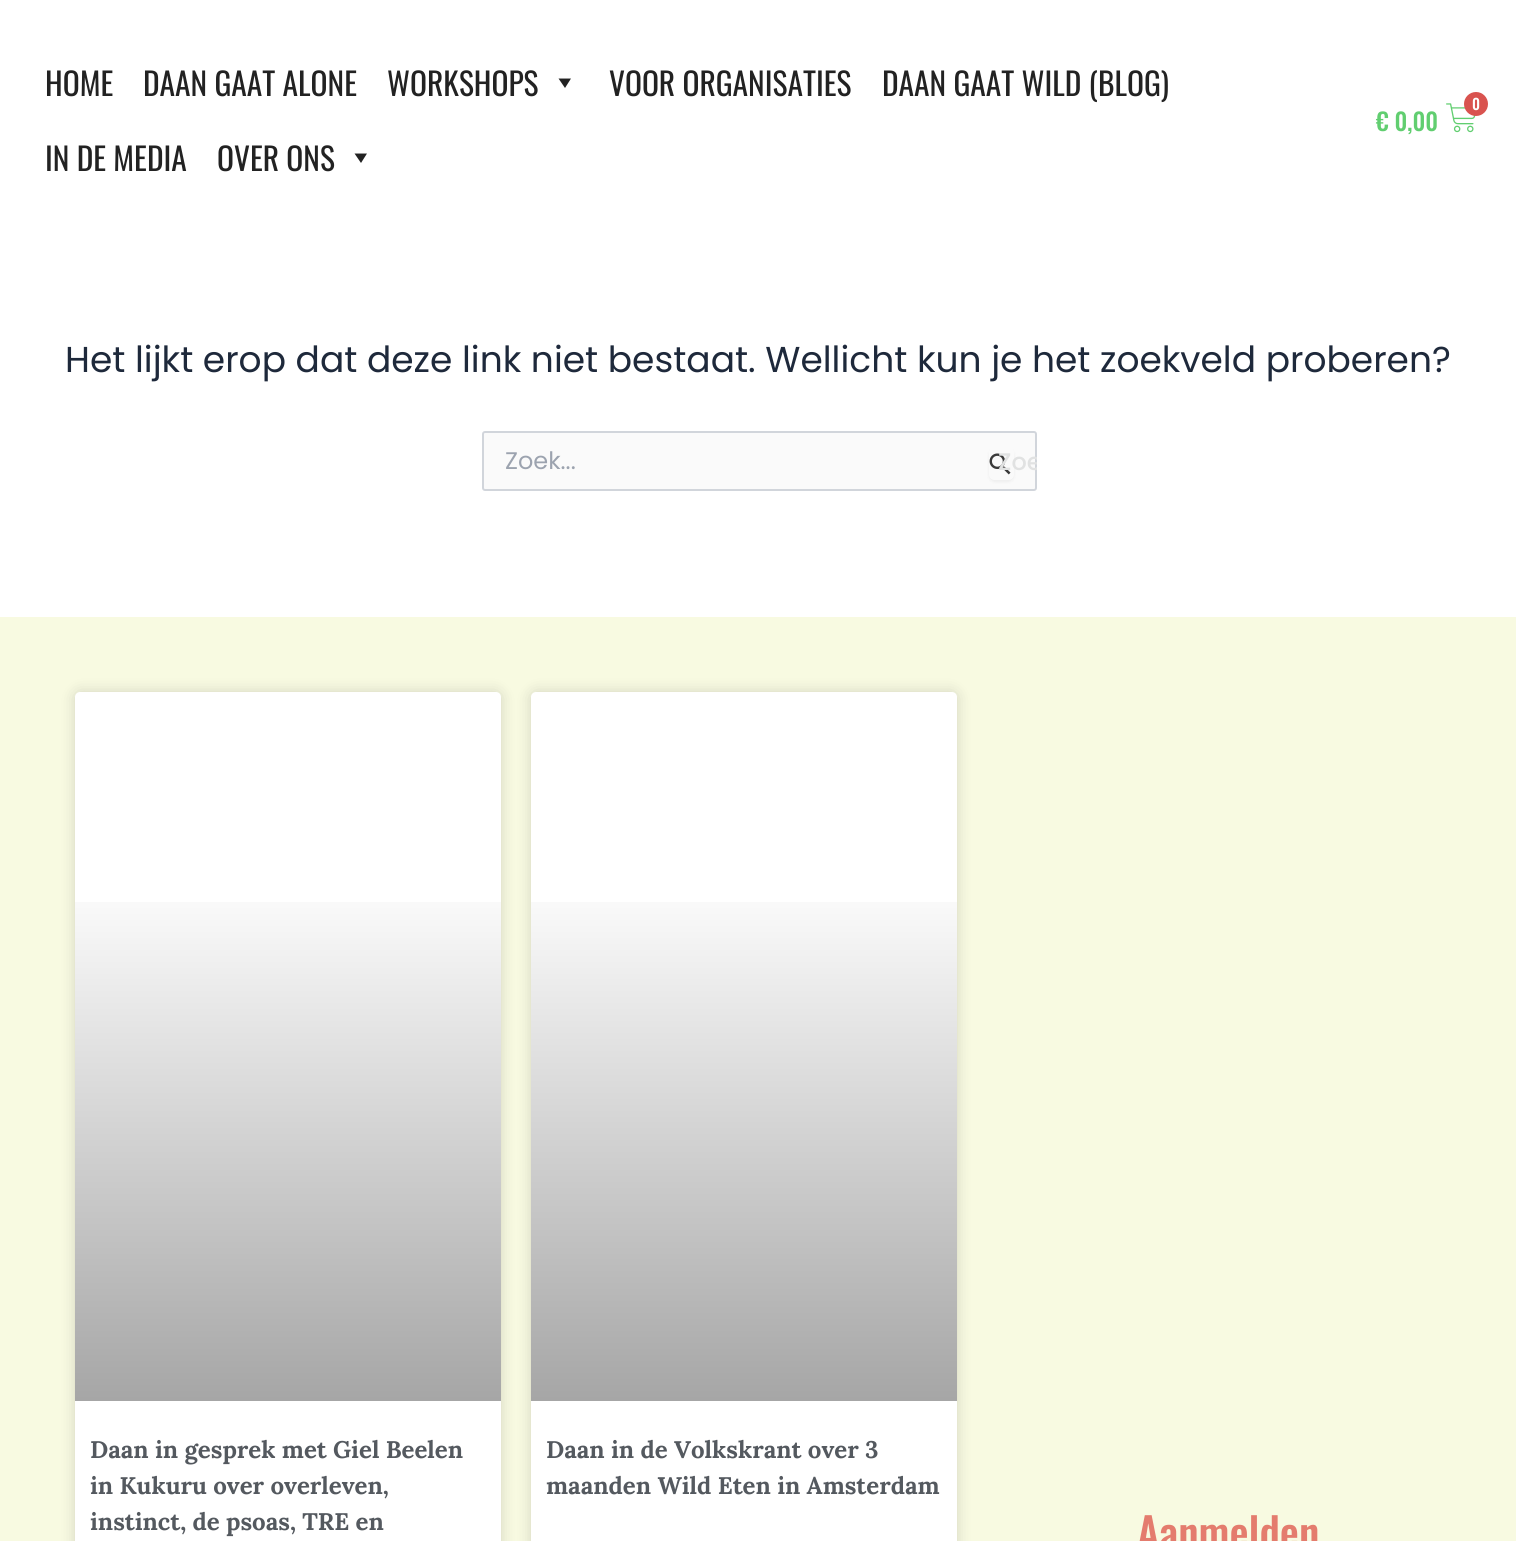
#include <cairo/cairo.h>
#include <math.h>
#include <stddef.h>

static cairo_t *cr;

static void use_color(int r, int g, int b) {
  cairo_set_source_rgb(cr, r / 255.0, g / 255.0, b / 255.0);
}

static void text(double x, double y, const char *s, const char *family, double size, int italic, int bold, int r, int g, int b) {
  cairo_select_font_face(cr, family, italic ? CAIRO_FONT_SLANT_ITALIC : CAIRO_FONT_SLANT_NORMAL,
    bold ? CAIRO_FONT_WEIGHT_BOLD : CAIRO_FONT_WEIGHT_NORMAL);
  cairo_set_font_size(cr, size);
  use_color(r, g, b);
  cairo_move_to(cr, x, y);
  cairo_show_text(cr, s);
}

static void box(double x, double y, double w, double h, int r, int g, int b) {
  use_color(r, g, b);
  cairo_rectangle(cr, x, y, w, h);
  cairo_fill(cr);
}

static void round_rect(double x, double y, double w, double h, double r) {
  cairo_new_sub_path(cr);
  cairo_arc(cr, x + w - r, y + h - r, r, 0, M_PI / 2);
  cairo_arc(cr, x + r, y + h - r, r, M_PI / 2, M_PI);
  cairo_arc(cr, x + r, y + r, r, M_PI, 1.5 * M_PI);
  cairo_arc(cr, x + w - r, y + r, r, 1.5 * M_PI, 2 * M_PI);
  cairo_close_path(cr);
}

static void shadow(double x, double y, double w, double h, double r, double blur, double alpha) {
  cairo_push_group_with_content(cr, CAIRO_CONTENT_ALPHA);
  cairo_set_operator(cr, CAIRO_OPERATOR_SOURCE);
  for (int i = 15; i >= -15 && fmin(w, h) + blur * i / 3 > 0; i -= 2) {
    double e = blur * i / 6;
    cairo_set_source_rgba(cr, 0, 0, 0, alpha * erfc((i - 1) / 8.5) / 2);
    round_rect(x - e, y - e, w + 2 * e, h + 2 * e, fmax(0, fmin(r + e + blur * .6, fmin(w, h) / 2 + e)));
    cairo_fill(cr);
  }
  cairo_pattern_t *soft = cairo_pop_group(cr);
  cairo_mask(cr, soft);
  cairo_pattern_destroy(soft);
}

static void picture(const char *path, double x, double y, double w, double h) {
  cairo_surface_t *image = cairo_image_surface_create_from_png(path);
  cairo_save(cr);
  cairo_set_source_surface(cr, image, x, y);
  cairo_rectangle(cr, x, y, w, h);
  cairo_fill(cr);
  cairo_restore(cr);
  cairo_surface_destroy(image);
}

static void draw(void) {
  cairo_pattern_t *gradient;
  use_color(255, 255, 255);
  cairo_paint(cr);
  use_color(34, 34, 34);
  cairo_new_path(cr);
  cairo_move_to(cr, 571, 78.5);
  cairo_line_to(cr, 565, 88);
  cairo_line_to(cr, 558.5, 78.5);
  cairo_close_path(cr);
  cairo_fill(cr);
  cairo_new_path(cr);
  cairo_move_to(cr, 367, 153.5);
  cairo_line_to(cr, 361, 163);
  cairo_line_to(cr, 354.5, 153.5);
  cairo_close_path(cr);
  cairo_fill(cr);
  picture("img_01.png", 1446, 103, 30, 30);
  use_color(217, 83, 79);
  cairo_arc(cr, 1476, 104, 12, 0, 2 * M_PI);
  cairo_fill(cr);
  use_color(250, 250, 250);
  round_rect(483, 432, 553, 58, 2);
  cairo_fill_preserve(cr);
  use_color(209, 213, 219);
  cairo_stroke(cr);
  cairo_save(cr);
  cairo_set_fill_rule(cr, CAIRO_FILL_RULE_EVEN_ODD);
  cairo_new_path(cr);
  cairo_move_to(cr, 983, 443);
  cairo_line_to(cr, 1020, 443);
  cairo_line_to(cr, 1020, 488);
  cairo_line_to(cr, 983, 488);
  cairo_close_path(cr);
  cairo_move_to(cr, 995, 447);
  cairo_line_to(cr, 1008, 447);
  cairo_curve_to(cr, 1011.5, 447, 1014, 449.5, 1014, 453);
  cairo_line_to(cr, 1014, 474);
  cairo_curve_to(cr, 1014, 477.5, 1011.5, 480, 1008, 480);
  cairo_line_to(cr, 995, 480);
  cairo_curve_to(cr, 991.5, 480, 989, 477.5, 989, 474);
  cairo_line_to(cr, 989, 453);
  cairo_curve_to(cr, 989, 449.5, 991.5, 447, 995, 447);
  cairo_close_path(cr);
  cairo_clip(cr);
  use_color(0, 0, 0);
  shadow(989, 449, 25, 33, 6, 1.5, 0.05);
  cairo_restore(cr);
  picture("img_02.png", 989, 453, 22, 22);
  box(0, 617, 1516, 924, 248, 250, 225);
  use_color(0, 0, 0);
  shadow(75, 692, 426, 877, 5, 7.5, 0.15);
  use_color(255, 255, 255);
  round_rect(75, 692, 426, 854, 5);
  cairo_fill(cr);
  gradient = cairo_pattern_create_linear(288, 1401, 288, 692);
  cairo_pattern_add_color_stop_rgba(gradient, 0, 0, 0, 0, 0.35);
  cairo_pattern_add_color_stop_rgba(gradient, 0.75, 0, 0, 0, 0);
  cairo_set_source(cr, gradient);
  cairo_pattern_destroy(gradient);
  cairo_rectangle(cr, 75, 902, 426, 499);
  cairo_fill(cr);
  use_color(0, 0, 0);
  shadow(531, 692, 426, 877, 5, 7.5, 0.15);
  use_color(255, 255, 255);
  round_rect(531, 692, 426, 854, 5);
  cairo_fill(cr);
  gradient = cairo_pattern_create_linear(744, 1401, 744, 692);
  cairo_pattern_add_color_stop_rgba(gradient, 0, 0, 0, 0, 0.35);
  cairo_pattern_add_color_stop_rgba(gradient, 0.75, 0, 0, 0, 0);
  cairo_set_source(cr, gradient);
  cairo_pattern_destroy(gradient);
  cairo_rectangle(cr, 531, 902, 426, 499);
  cairo_fill(cr);
  text(45, 96, "HOME", "Oswald", 31.5, 0, 0, 34, 34, 34);
  text(143, 96, "DAAN GAAT ALONE", "Oswald", 31.5, 0, 0, 34, 34, 34);
  text(387, 96, "WORKSHOPS", "Oswald", 31.5, 0, 0, 34, 34, 34);
  text(609, 96, "VOOR ORGANISATIES", "Oswald", 31.5, 0, 0, 34, 34, 34);
  text(882, 96, "DAAN GAAT WILD (BLOG)", "Oswald", 31.5, 0, 0, 34, 34, 34);
  text(45, 171, "IN DE MEDIA", "Oswald", 31.5, 0, 0, 34, 34, 34);
  text(217, 171, "OVER ONS", "Oswald", 31.5, 0, 0, 34, 34, 34);
  text(1472, 110, "0", "Oswald Medium", 15, 0, 0, 255, 255, 255);
  text(1376, 131, "€ 0,00", "Oswald Medium", 24, 0, 0, 97, 206, 112);
  text(65, 372, "Het lijkt erop dat deze link niet bestaat. Wellicht kun je het zoekveld proberen?", "Poppins", 36, 0, 0, 30, 41, 59);
  text(505, 469, "Zoek...", "Poppins", 24, 0, 0, 156, 163, 175);
  cairo_save(cr);
  round_rect(969, 431, 68, 63, 3);
  cairo_clip(cr);
  text(998, 470, "Zoe", "Poppins Medium", 24, 0, 0, 225, 226, 226);
  cairo_restore(cr);
  text(90, 1458, "Daan in gesprek met Giel Beelen", "Lora", 24, 0, 1, 84, 89, 95);
  text(90, 1494, "in Kukuru over overleven,", "Lora", 24, 0, 1, 84, 89, 95);
  text(90, 1530, "instinct, de psoas, TRE en", "Lora", 24, 0, 1, 84, 89, 95);
  text(546, 1458, "Daan in de Volkskrant over 3", "Lora", 24, 0, 1, 84, 89, 95);
  text(546, 1494, "maanden Wild Eten in Amsterdam", "Lora", 24, 0, 1, 84, 89, 95);
  text(1137, 1550, "Aanmelden", "Oswald Medium", 43, 0, 0, 228, 124, 110);
}

int main(void) {
  cairo_surface_t *surface = cairo_image_surface_create(CAIRO_FORMAT_RGB24, 1516, 1541);
  cr = cairo_create(surface);
  cairo_font_options_t *options = cairo_font_options_create();
  cairo_font_options_set_hint_metrics(options, CAIRO_HINT_METRICS_OFF);
  cairo_font_options_set_hint_style(options, CAIRO_HINT_STYLE_NONE);
  cairo_set_font_options(cr, options);
  cairo_set_miter_limit(cr, 4);
  draw();
  cairo_surface_write_to_png(surface, "out.png");
  cairo_font_options_destroy(options);
  cairo_destroy(cr);
  cairo_surface_destroy(surface);
  return 0;
}
